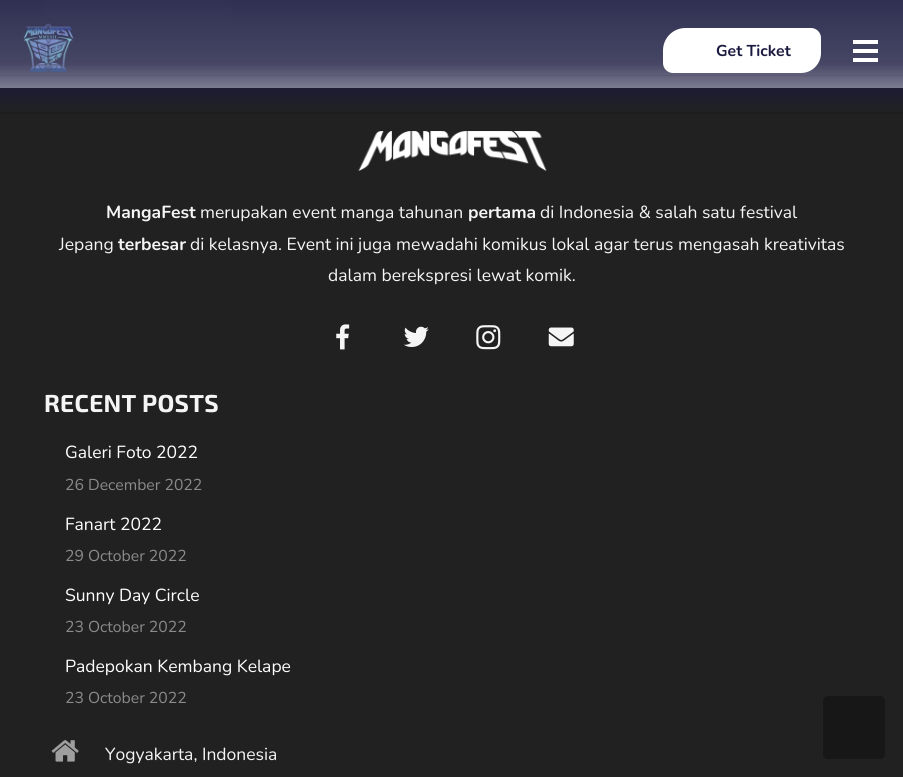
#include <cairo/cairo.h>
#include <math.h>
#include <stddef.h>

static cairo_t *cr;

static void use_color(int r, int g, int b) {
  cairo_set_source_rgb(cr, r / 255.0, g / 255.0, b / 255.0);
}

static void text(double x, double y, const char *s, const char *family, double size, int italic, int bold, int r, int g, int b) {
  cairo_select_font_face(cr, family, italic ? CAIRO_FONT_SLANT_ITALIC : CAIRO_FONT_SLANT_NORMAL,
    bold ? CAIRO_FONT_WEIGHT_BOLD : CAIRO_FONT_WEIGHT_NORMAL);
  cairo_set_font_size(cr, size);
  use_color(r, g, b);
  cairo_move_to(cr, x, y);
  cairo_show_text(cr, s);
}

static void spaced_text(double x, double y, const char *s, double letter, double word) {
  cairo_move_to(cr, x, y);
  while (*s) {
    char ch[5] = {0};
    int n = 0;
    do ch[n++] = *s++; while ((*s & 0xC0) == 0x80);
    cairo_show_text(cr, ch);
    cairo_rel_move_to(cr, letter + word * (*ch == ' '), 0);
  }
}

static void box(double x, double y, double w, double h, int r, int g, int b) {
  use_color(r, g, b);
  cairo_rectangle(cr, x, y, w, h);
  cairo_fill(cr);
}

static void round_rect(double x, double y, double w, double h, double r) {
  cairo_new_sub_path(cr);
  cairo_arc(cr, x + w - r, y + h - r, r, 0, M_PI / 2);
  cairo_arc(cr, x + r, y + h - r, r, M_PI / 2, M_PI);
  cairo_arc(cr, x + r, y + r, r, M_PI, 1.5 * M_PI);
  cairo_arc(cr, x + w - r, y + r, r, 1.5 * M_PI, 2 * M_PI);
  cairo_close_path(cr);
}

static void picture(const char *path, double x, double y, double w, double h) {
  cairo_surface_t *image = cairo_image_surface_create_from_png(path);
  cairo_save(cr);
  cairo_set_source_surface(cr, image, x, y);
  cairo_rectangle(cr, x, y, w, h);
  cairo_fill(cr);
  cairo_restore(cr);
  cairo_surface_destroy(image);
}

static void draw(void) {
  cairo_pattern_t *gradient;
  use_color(245, 245, 245);
  cairo_paint(cr);
  use_color(255, 255, 255);
  round_rect(44, -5, 187, 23, 5);
  cairo_fill(cr);
  box(0, 88, 903, 689, 33, 33, 33);
  gradient = cairo_pattern_create_linear(452, 0, 452, 113);
  cairo_pattern_add_color_stop_rgba(gradient, 0, 0.102, 0.102, 0.251, 0.9);
  cairo_pattern_add_color_stop_rgba(gradient, 0.56, 0.102, 0.102, 0.251, 0.8);
  cairo_pattern_add_color_stop_rgba(gradient, 0.83, 0.102, 0.102, 0.251, 0.5);
  cairo_pattern_add_color_stop_rgba(gradient, 1, 0.102, 0.102, 0.251, 0);
  cairo_set_source(cr, gradient);
  cairo_pattern_destroy(gradient);
  cairo_rectangle(cr, 0, 0, 903, 110);
  cairo_fill(cr);
  use_color(89, 89, 113);
  cairo_new_path(cr);
  cairo_move_to(cr, 0, 75);
  cairo_line_to(cr, 0, 76);
  cairo_line_to(cr, 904, 76);
  cairo_line_to(cr, 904, 26);
  cairo_line_to(cr, 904, 75);
  cairo_close_path(cr);
  cairo_fill(cr);
  picture("img_01.png", 23, 23, 51, 49);
  use_color(255, 255, 255);
  cairo_new_path(cr);
  cairo_move_to(cr, 685.5, 28);
  cairo_line_to(cr, 811, 28);
  cairo_curve_to(cr, 816.5, 28, 821, 32.5, 821, 38);
  cairo_line_to(cr, 821, 53);
  cairo_curve_to(cr, 821, 64, 812, 73, 801, 73);
  cairo_line_to(cr, 673, 73);
  cairo_curve_to(cr, 667.5, 73, 663, 68.5, 663, 63);
  cairo_line_to(cr, 663, 50.5);
  cairo_curve_to(cr, 663, 38, 673, 28, 685.5, 28);
  cairo_close_path(cr);
  cairo_fill(cr);
  box(853, 49, 25, 4, 255, 255, 255);
  box(853, 40, 25, 4, 255, 255, 255);
  box(853, 58, 25, 4, 255, 255, 255);
  use_color(30, 30, 31);
  cairo_new_path(cr);
  cairo_move_to(cr, 0, 112);
  cairo_line_to(cr, 0, 114);
  cairo_line_to(cr, 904, 114);
  cairo_line_to(cr, 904, 76);
  cairo_line_to(cr, 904, 112);
  cairo_close_path(cr);
  cairo_fill(cr);
  picture("img_02.png", 358, 131, 189, 40);
  picture("img_03.png", 336, 324, 14, 26);
  picture("img_04.png", 404, 326, 25, 21);
  picture("img_05.png", 476, 325, 25, 25);
  picture("img_06.png", 548, 327, 26, 20);
  picture("img_07.png", 51, 740, 28, 22);
  use_color(23, 23, 23);
  round_rect(823, 696, 62, 63, 5);
  cairo_fill(cr);
  text(716, 56, "Get Ticket", "Nunito", 15.75, 0, 1, 26, 26, 64);
  text(106, 218, "MangaFest", "Nunito", 17.5, 0, 1, 245, 245, 245);
  text(200, 218, "merupakan event manga tahunan", "Nunito", 17.5, 0, 0, 245, 245, 245);
  text(468, 218, "pertama", "Nunito", 17.5, 0, 1, 245, 245, 245);
  text(540, 218, "di Indonesia & salah satu festival", "Nunito", 17.5, 0, 0, 245, 245, 245);
  text(59, 250, "Jepang", "Nunito", 17.5, 0, 0, 245, 245, 245);
  text(118, 250, "terbesar", "Nunito", 17.5, 0, 1, 245, 245, 245);
  text(190, 250, "di kelasnya. Event ini juga mewadahi komikus lokal agar terus mengasah kreativitas", "Nunito", 17.5, 0, 0, 245, 245, 245);
  text(328, 281, "dalam berekspresi lewat komik.", "Nunito", 17.5, 0, 0, 245, 245, 245);
  cairo_select_font_face(cr, "Exo 2", CAIRO_FONT_SLANT_NORMAL, CAIRO_FONT_WEIGHT_BOLD);
  cairo_set_font_size(cr, 24.5);
  spaced_text(44, 412, "RECENT POSTS", 0.25, 0);
  text(65, 458, "Galeri Foto 2022", "Nunito", 17.5, 0, 0, 255, 255, 255);
  text(65, 490, "26 December 2022", "Nunito", 15.75, 0, 0, 139, 139, 139);
  text(65, 530, "Fanart 2022", "Nunito", 17.5, 0, 0, 255, 255, 255);
  text(65, 561, "29 October 2022", "Nunito", 15.75, 0, 0, 139, 139, 139);
  text(65, 601, "Sunny Day Circle", "Nunito", 17.5, 0, 0, 255, 255, 255);
  text(65, 632, "23 October 2022", "Nunito", 15.75, 0, 0, 139, 139, 139);
  text(65, 672, "Padepokan Kembang Kelape", "Nunito", 17.5, 0, 0, 255, 255, 255);
  text(65, 703, "23 October 2022", "Nunito", 15.75, 0, 0, 139, 139, 139);
  text(105, 760, "Yogyakarta, Indonesia", "Nunito", 17.5, 0, 0, 245, 245, 245);
}

int main(void) {
  cairo_surface_t *surface = cairo_image_surface_create(CAIRO_FORMAT_RGB24, 903, 777);
  cr = cairo_create(surface);
  cairo_font_options_t *options = cairo_font_options_create();
  cairo_font_options_set_hint_metrics(options, CAIRO_HINT_METRICS_OFF);
  cairo_font_options_set_hint_style(options, CAIRO_HINT_STYLE_NONE);
  cairo_set_font_options(cr, options);
  cairo_set_miter_limit(cr, 4);
  draw();
  cairo_surface_write_to_png(surface, "out.png");
  cairo_font_options_destroy(options);
  cairo_destroy(cr);
  cairo_surface_destroy(surface);
  return 0;
}
